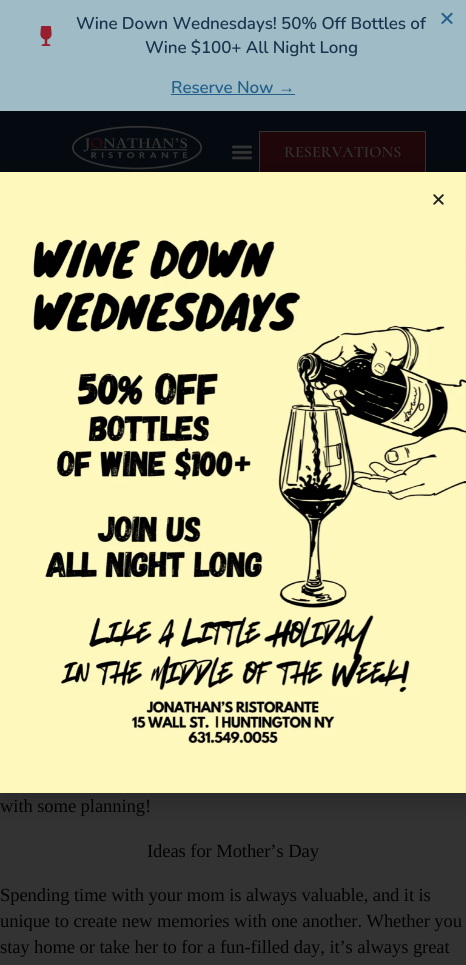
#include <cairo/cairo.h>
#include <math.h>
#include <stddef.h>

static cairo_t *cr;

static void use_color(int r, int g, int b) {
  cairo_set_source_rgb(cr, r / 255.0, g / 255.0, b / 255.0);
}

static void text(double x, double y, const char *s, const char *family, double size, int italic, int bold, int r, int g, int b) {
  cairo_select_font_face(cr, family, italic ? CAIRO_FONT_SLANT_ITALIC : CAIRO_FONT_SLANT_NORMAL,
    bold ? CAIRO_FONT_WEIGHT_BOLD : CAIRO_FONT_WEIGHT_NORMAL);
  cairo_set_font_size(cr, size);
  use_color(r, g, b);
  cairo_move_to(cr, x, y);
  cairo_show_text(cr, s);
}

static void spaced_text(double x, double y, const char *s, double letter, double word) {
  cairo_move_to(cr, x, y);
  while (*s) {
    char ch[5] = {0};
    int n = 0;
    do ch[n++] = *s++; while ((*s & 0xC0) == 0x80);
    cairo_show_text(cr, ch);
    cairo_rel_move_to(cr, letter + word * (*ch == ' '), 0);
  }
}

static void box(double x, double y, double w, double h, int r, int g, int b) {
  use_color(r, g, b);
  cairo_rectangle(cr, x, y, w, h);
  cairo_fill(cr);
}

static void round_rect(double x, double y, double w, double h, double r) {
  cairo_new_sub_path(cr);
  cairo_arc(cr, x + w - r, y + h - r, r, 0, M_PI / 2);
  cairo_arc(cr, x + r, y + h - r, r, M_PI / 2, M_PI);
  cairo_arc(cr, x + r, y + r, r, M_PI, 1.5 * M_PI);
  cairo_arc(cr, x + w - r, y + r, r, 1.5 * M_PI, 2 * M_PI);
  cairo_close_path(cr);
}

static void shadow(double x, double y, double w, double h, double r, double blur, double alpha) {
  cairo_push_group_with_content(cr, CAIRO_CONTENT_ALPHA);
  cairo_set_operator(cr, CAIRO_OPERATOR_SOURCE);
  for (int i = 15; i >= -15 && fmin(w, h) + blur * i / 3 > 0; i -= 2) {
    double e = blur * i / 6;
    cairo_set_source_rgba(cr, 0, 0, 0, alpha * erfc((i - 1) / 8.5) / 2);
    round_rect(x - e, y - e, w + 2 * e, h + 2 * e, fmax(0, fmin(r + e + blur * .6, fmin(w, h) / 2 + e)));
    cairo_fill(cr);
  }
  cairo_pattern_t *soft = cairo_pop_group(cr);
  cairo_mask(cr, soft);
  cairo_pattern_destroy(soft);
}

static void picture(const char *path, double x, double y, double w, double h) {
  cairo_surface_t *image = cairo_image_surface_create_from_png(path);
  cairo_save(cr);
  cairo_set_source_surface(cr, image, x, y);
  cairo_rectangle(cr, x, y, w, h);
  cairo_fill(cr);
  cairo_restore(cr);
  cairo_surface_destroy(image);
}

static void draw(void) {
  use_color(51, 51, 51);
  cairo_paint(cr);
  box(0, 0, 466, 111, 159, 188, 198);
  picture("img_01.png", 40, 26, 12, 20);
  picture("img_02.png", 441, 12, 12, 12);
  box(171, 94, 124, 1, 36, 96, 141);
  box(0, 111, 466, 82, 5, 10, 16);
  picture("img_05.png", 72, 126, 130, 46);
  picture("img_06.png", 231, 145, 22, 15);
  use_color(30, 6, 9);
  cairo_rectangle(cr, 259.5, 131.5, 166, 41);
  cairo_fill_preserve(cr);
  use_color(51, 51, 51);
  cairo_set_line_width(cr, 1);
  cairo_stroke(cr);
  picture("img_07.png", 465, 193, 1, 400);
  use_color(0, 0, 0);
  shadow(-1, 177, 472, 627, 0, 11.5, 0.2);
  picture("img_03.png", 0, 172, 466, 621);
  picture("img_04.png", 433, 194, 11, 11);
  cairo_select_font_face(cr, "Nunito SemiBold", CAIRO_FONT_SLANT_NORMAL, CAIRO_FONT_WEIGHT_NORMAL);
  cairo_set_font_size(cr, 17);
  use_color(26, 52, 78);
  spaced_text(76, 29, "Wine Down Wednesdays! 50% Off Bottles of", -0.1, 0);
  spaced_text(145, 53, "Wine $100+ All Night Long", -0.1, 0);
  use_color(36, 96, 141);
  spaced_text(171, 93, "Reserve Now", -0.1, 0);
  cairo_select_font_face(cr, "Liberation Sans", CAIRO_FONT_SLANT_NORMAL, CAIRO_FONT_WEIGHT_BOLD);
  spaced_text(278, 93, "→", -0.1, 0);
  text(284, 157, "RESERVATIONS", "Cormorant SC SemiBold", 16, 0, 0, 51, 51, 51);
  cairo_select_font_face(cr, "Liberation Serif", CAIRO_FONT_SLANT_NORMAL, CAIRO_FONT_WEIGHT_NORMAL);
  cairo_set_font_size(cr, 18.6);
  use_color(3, 3, 3);
  spaced_text(0, 812, "with some planning!", -0.1, 0);
  spaced_text(147, 857, "Ideas for Mother’s Day", -0.1, 0);
  spaced_text(0, 901, "Spending time with your mom is always valuable, and it is", -0.1, 0);
  spaced_text(0, 927, "unique to create new memories with one another. Whether you", -0.1, 0);
  spaced_text(0, 953, "stay home or take her to for a fun-filled day, it’s always great", -0.1, 0);
}

int main(void) {
  cairo_surface_t *surface = cairo_image_surface_create(CAIRO_FORMAT_RGB24, 466, 965);
  cr = cairo_create(surface);
  cairo_font_options_t *options = cairo_font_options_create();
  cairo_font_options_set_hint_metrics(options, CAIRO_HINT_METRICS_OFF);
  cairo_font_options_set_hint_style(options, CAIRO_HINT_STYLE_NONE);
  cairo_set_font_options(cr, options);
  cairo_set_miter_limit(cr, 4);
  draw();
  cairo_surface_write_to_png(surface, "out.png");
  cairo_font_options_destroy(options);
  cairo_destroy(cr);
  cairo_surface_destroy(surface);
  return 0;
}
